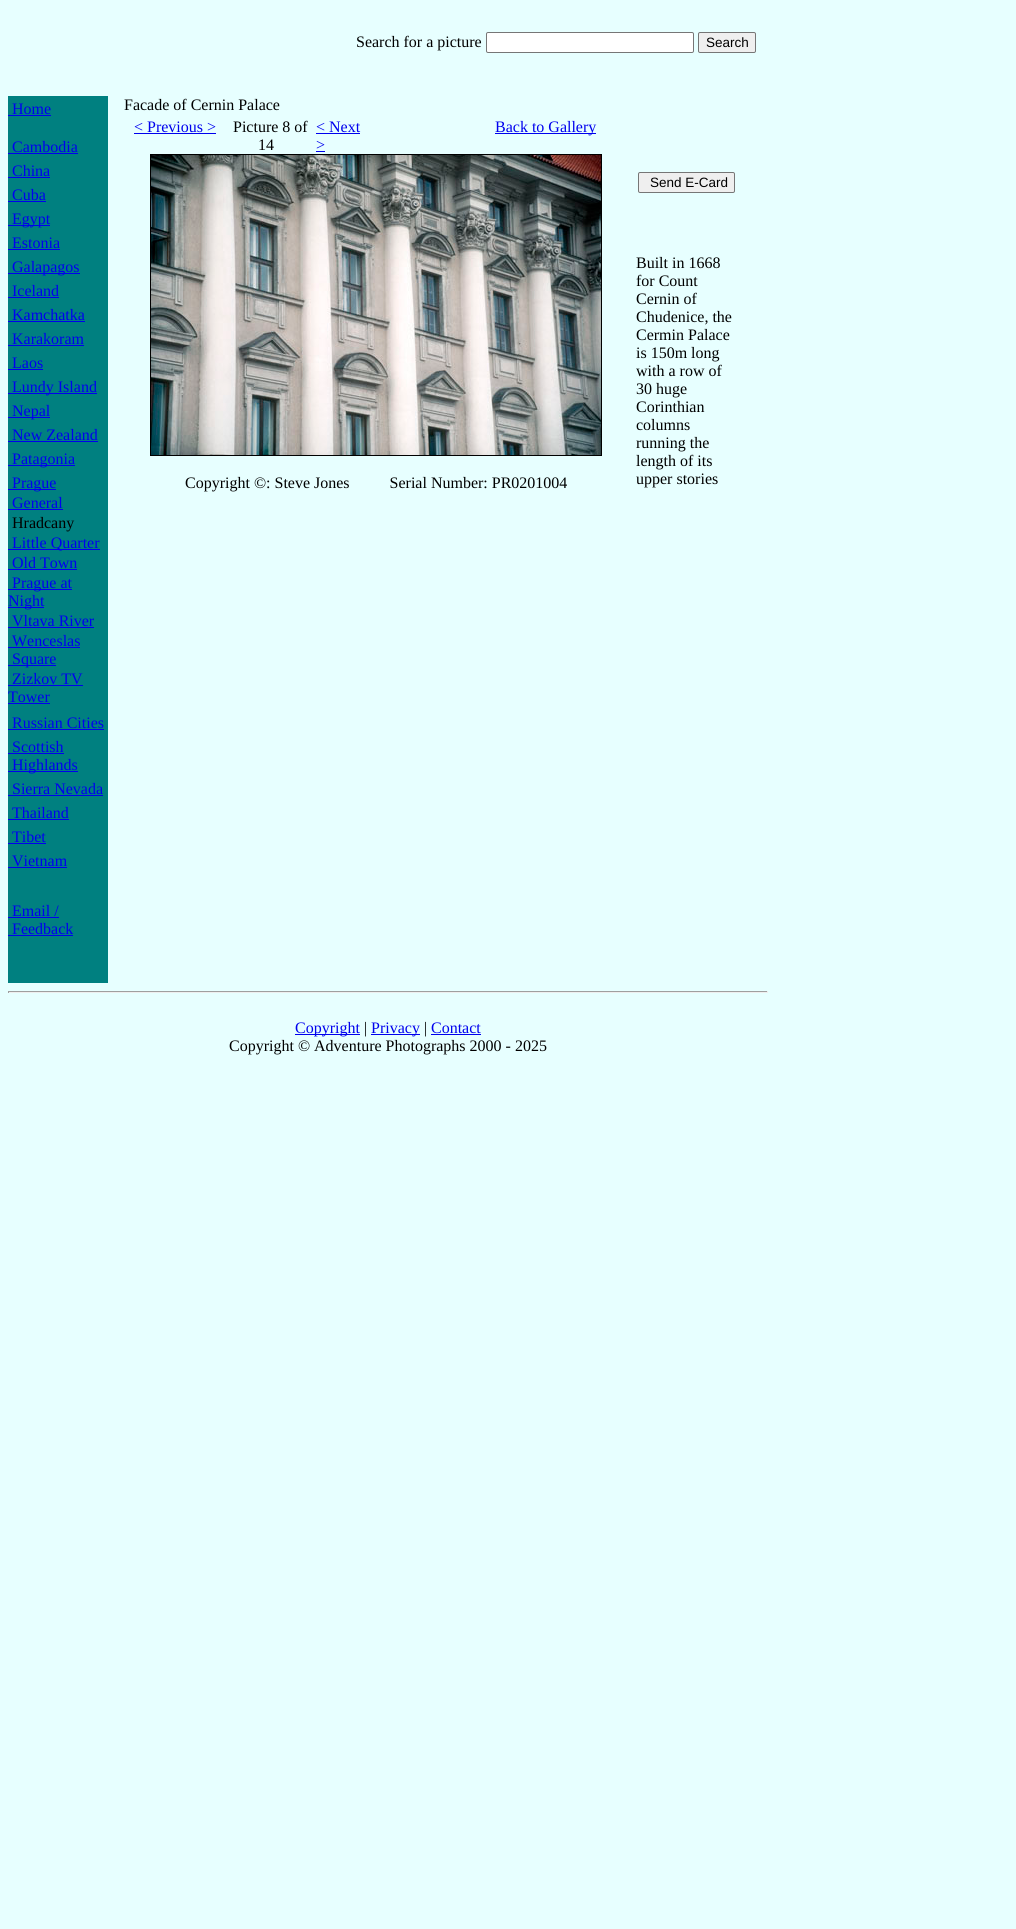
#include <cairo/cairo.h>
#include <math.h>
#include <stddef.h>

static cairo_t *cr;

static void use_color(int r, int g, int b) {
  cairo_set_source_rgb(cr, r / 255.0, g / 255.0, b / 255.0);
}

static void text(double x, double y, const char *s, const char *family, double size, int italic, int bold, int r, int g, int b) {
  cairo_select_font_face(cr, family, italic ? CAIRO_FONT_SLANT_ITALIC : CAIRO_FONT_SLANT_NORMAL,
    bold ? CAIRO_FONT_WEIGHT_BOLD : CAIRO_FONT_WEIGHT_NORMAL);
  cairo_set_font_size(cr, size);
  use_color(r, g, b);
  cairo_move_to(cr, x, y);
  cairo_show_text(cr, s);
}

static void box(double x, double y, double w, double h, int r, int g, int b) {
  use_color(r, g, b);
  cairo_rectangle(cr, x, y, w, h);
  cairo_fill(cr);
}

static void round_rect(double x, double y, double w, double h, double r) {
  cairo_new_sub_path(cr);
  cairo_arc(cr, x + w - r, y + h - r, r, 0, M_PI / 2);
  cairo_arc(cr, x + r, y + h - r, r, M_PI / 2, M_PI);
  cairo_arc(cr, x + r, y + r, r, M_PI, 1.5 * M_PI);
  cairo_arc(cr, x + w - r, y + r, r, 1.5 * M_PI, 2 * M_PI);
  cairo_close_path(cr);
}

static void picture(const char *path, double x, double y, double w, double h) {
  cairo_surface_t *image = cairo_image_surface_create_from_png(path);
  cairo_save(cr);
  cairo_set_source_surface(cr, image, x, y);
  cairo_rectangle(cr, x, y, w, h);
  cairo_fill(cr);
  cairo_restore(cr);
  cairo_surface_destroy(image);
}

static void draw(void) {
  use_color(231, 255, 255);
  cairo_paint(cr);
  use_color(255, 255, 255);
  round_rect(486.5, 32.5, 207, 20, 1.5);
  cairo_fill_preserve(cr);
  use_color(118, 118, 118);
  cairo_set_line_width(cr, 1);
  cairo_stroke(cr);
  use_color(239, 239, 239);
  round_rect(698.5, 32.5, 57, 20, 1.5);
  cairo_fill_preserve(cr);
  use_color(118, 118, 118);
  cairo_stroke(cr);
  box(8, 96, 100, 887, 0, 128, 128);
  box(8, 115, 43, 1, 0, 0, 238);
  box(8, 153, 70, 1, 0, 0, 238);
  box(8, 177, 42, 1, 0, 0, 238);
  box(8, 201, 38, 1, 0, 0, 238);
  box(8, 225, 42, 1, 0, 0, 238);
  box(8, 249, 52, 1, 0, 0, 238);
  box(8, 273, 72, 1, 0, 0, 238);
  box(8, 297, 51, 1, 0, 0, 238);
  box(8, 321, 77, 1, 0, 0, 238);
  box(8, 345, 76, 1, 0, 0, 238);
  box(8, 369, 35, 1, 0, 0, 238);
  box(8, 393, 89, 1, 0, 0, 238);
  box(8, 417, 42, 1, 0, 0, 238);
  box(8, 441, 90, 1, 0, 0, 238);
  box(8, 465, 67, 1, 0, 0, 238);
  box(8, 489, 48, 1, 0, 0, 238);
  box(8, 509, 55, 1, 0, 0, 238);
  box(8, 549, 92, 1, 0, 0, 238);
  box(8, 569, 69, 1, 0, 0, 238);
  box(8, 589, 64, 1, 0, 0, 238);
  box(8, 607, 36, 1, 0, 0, 238);
  box(8, 627, 86, 1, 0, 0, 238);
  box(8, 647, 72, 1, 0, 0, 238);
  box(8, 665, 48, 1, 0, 0, 238);
  box(8, 685, 75, 1, 0, 0, 238);
  box(8, 703, 42, 1, 0, 0, 238);
  box(8, 729, 96, 1, 0, 0, 238);
  box(8, 753, 56, 1, 0, 0, 238);
  box(8, 771, 70, 1, 0, 0, 238);
  box(8, 795, 95, 1, 0, 0, 238);
  box(8, 819, 61, 1, 0, 0, 238);
  box(8, 843, 38, 1, 0, 0, 238);
  box(8, 867, 59, 1, 0, 0, 238);
  box(8, 917, 51, 1, 0, 0, 238);
  box(8, 935, 65, 1, 0, 0, 238);
  box(134, 133, 82, 1, 0, 0, 238);
  box(316, 133, 44, 1, 0, 0, 238);
  box(316, 151, 9, 1, 0, 0, 238);
  box(495, 133, 101, 1, 0, 0, 238);
  use_color(239, 239, 239);
  round_rect(638.5, 172.5, 96, 20, 1.5);
  cairo_fill_preserve(cr);
  use_color(118, 118, 118);
  cairo_stroke(cr);
  cairo_rectangle(cr, 150.5, 154.5, 451, 301);
  use_color(0, 0, 0);
  cairo_stroke(cr);
  picture("img_01.png", 151, 155, 450, 300);
  box(8, 991, 760, 1, 159, 159, 159);
  box(767, 991, 1, 2, 238, 238, 238);
  box(8, 992, 760, 1, 238, 238, 238);
  box(8, 991, 1, 2, 159, 159, 159);
  box(295, 1034, 65, 1, 0, 0, 238);
  box(371, 1034, 49, 1, 0, 0, 238);
  box(431, 1034, 50, 1, 0, 0, 238);
  text(356, 47, "Search for a picture", "Liberation Serif", 16, 0, 0, 0, 0, 0);
  text(706, 47, "Search", "Liberation Sans", 13.5, 0, 0, 0, 0, 0);
  text(12, 114, "Home", "Liberation Serif", 16, 0, 0, 0, 0, 238);
  text(12, 152, "Cambodia", "Liberation Serif", 16, 0, 0, 0, 0, 238);
  text(12, 176, "China", "Liberation Serif", 16, 0, 0, 0, 0, 238);
  text(12, 200, "Cuba", "Liberation Serif", 16, 0, 0, 0, 0, 238);
  text(12, 224, "Egypt", "Liberation Serif", 16, 0, 0, 0, 0, 238);
  text(12, 248, "Estonia", "Liberation Serif", 16, 0, 0, 0, 0, 238);
  text(12, 272, "Galapagos", "Liberation Serif", 16, 0, 0, 0, 0, 238);
  text(12, 296, "Iceland", "Liberation Serif", 16, 0, 0, 0, 0, 238);
  text(12, 320, "Kamchatka", "Liberation Serif", 16, 0, 0, 0, 0, 238);
  text(12, 344, "Karakoram", "Liberation Serif", 16, 0, 0, 0, 0, 238);
  text(12, 368, "Laos", "Liberation Serif", 16, 0, 0, 0, 0, 238);
  text(12, 392, "Lundy Island", "Liberation Serif", 16, 0, 0, 0, 0, 238);
  text(12, 416, "Nepal", "Liberation Serif", 16, 0, 0, 0, 0, 238);
  text(12, 440, "New Zealand", "Liberation Serif", 16, 0, 0, 0, 0, 238);
  text(12, 464, "Patagonia", "Liberation Serif", 16, 0, 0, 0, 0, 238);
  text(12, 488, "Prague", "Liberation Serif", 16, 0, 0, 0, 0, 238);
  text(12, 508, "General", "Liberation Serif", 16, 0, 0, 0, 0, 238);
  text(12, 528, "Hradcany", "Liberation Serif", 16, 0, 0, 0, 0, 0);
  text(12, 548, "Little Quarter", "Liberation Serif", 16, 0, 0, 0, 0, 238);
  text(12, 568, "Old Town", "Liberation Serif", 16, 0, 0, 0, 0, 238);
  text(12, 588, "Prague at", "Liberation Serif", 16, 0, 0, 0, 0, 238);
  text(8, 606, "Night", "Liberation Serif", 16, 0, 0, 0, 0, 238);
  text(12, 626, "Vltava River", "Liberation Serif", 16, 0, 0, 0, 0, 238);
  text(12, 646, "Wenceslas", "Liberation Serif", 16, 0, 0, 0, 0, 238);
  text(12, 664, "Square", "Liberation Serif", 16, 0, 0, 0, 0, 238);
  text(12, 684, "Zizkov TV", "Liberation Serif", 16, 0, 0, 0, 0, 238);
  text(8, 702, "Tower", "Liberation Serif", 16, 0, 0, 0, 0, 238);
  text(12, 728, "Russian Cities", "Liberation Serif", 16, 0, 0, 0, 0, 238);
  text(12, 752, "Scottish", "Liberation Serif", 16, 0, 0, 0, 0, 238);
  text(12, 770, "Highlands", "Liberation Serif", 16, 0, 0, 0, 0, 238);
  text(12, 794, "Sierra Nevada", "Liberation Serif", 16, 0, 0, 0, 0, 238);
  text(12, 818, "Thailand", "Liberation Serif", 16, 0, 0, 0, 0, 238);
  text(12, 842, "Tibet", "Liberation Serif", 16, 0, 0, 0, 0, 238);
  text(12, 866, "Vietnam", "Liberation Serif", 16, 0, 0, 0, 0, 238);
  text(12, 916, "Email /", "Liberation Serif", 16, 0, 0, 0, 0, 238);
  text(12, 934, "Feedback", "Liberation Serif", 16, 0, 0, 0, 0, 238);
  text(124, 110, "Facade of Cernin Palace", "Liberation Serif", 16, 0, 0, 0, 0, 0);
  text(134, 132, "< Previous >", "Liberation Serif", 16, 0, 0, 0, 0, 238);
  text(233, 132, "Picture 8 of", "Liberation Serif", 16, 0, 0, 0, 0, 0);
  text(258, 150, "14", "Liberation Serif", 16, 0, 0, 0, 0, 0);
  text(316, 132, "< Next", "Liberation Serif", 16, 0, 0, 0, 0, 238);
  text(316, 150, ">", "Liberation Serif", 16, 0, 0, 0, 0, 238);
  text(495, 132, "Back to Gallery", "Liberation Serif", 16, 0, 0, 0, 0, 238);
  text(650, 187, "Send E-Card", "Liberation Sans", 13.5, 0, 0, 0, 0, 0);
  text(185, 488, "Copyright ©: Steve Jones          Serial Number: PR0201004", "Liberation Serif", 16, 0, 0, 0, 0, 0);
  text(636, 268, "Built in 1668", "Liberation Serif", 16, 0, 0, 0, 0, 0);
  text(636, 286, "for Count", "Liberation Serif", 16, 0, 0, 0, 0, 0);
  text(636, 304, "Cernin of", "Liberation Serif", 16, 0, 0, 0, 0, 0);
  text(636, 322, "Chudenice, the", "Liberation Serif", 16, 0, 0, 0, 0, 0);
  text(636, 340, "Cermin Palace", "Liberation Serif", 16, 0, 0, 0, 0, 0);
  text(636, 358, "is 150m long", "Liberation Serif", 16, 0, 0, 0, 0, 0);
  text(636, 376, "with a row of", "Liberation Serif", 16, 0, 0, 0, 0, 0);
  text(636, 394, "30 huge", "Liberation Serif", 16, 0, 0, 0, 0, 0);
  text(636, 412, "Corinthian", "Liberation Serif", 16, 0, 0, 0, 0, 0);
  text(636, 430, "columns", "Liberation Serif", 16, 0, 0, 0, 0, 0);
  text(636, 448, "running the", "Liberation Serif", 16, 0, 0, 0, 0, 0);
  text(636, 466, "length of its", "Liberation Serif", 16, 0, 0, 0, 0, 0);
  text(636, 484, "upper stories", "Liberation Serif", 16, 0, 0, 0, 0, 0);
  text(295, 1033, "Copyright", "Liberation Serif", 16, 0, 0, 0, 0, 238);
  text(364, 1033, "|", "Liberation Serif", 16, 0, 0, 0, 0, 0);
  text(371, 1033, "Privacy", "Liberation Serif", 16, 0, 0, 0, 0, 238);
  text(424, 1033, "|", "Liberation Serif", 16, 0, 0, 0, 0, 0);
  text(431, 1033, "Contact", "Liberation Serif", 16, 0, 0, 0, 0, 238);
  text(229, 1051, "Copyright © Adventure Photographs 2000 - 2025", "Liberation Serif", 16, 0, 0, 0, 0, 0);
}

int main(void) {
  cairo_surface_t *surface = cairo_image_surface_create(CAIRO_FORMAT_RGB24, 1016, 1929);
  cr = cairo_create(surface);
  cairo_font_options_t *options = cairo_font_options_create();
  cairo_font_options_set_hint_metrics(options, CAIRO_HINT_METRICS_OFF);
  cairo_font_options_set_hint_style(options, CAIRO_HINT_STYLE_NONE);
  cairo_set_font_options(cr, options);
  cairo_set_miter_limit(cr, 4);
  draw();
  cairo_surface_write_to_png(surface, "out.png");
  cairo_font_options_destroy(options);
  cairo_destroy(cr);
  cairo_surface_destroy(surface);
  return 0;
}
